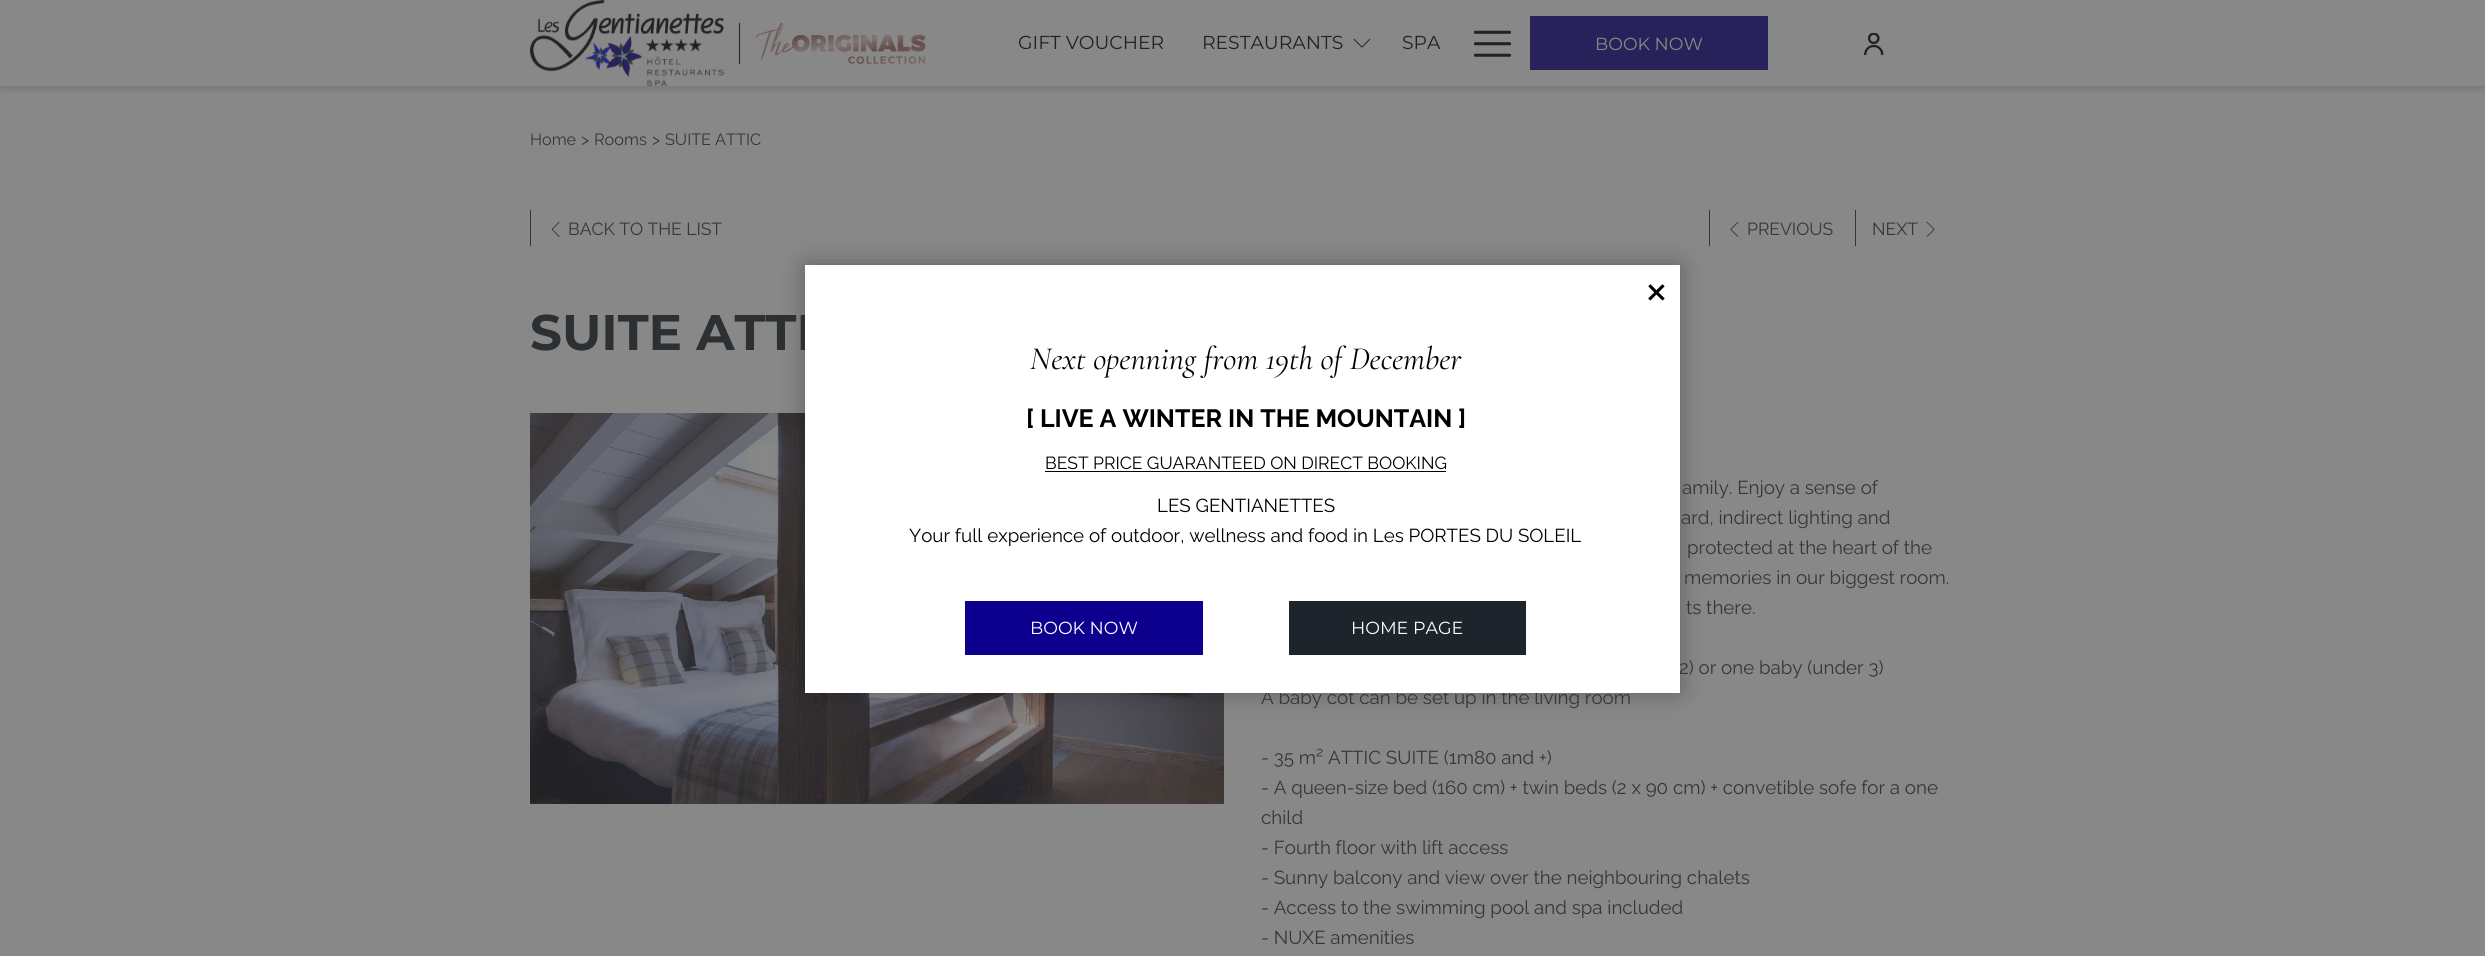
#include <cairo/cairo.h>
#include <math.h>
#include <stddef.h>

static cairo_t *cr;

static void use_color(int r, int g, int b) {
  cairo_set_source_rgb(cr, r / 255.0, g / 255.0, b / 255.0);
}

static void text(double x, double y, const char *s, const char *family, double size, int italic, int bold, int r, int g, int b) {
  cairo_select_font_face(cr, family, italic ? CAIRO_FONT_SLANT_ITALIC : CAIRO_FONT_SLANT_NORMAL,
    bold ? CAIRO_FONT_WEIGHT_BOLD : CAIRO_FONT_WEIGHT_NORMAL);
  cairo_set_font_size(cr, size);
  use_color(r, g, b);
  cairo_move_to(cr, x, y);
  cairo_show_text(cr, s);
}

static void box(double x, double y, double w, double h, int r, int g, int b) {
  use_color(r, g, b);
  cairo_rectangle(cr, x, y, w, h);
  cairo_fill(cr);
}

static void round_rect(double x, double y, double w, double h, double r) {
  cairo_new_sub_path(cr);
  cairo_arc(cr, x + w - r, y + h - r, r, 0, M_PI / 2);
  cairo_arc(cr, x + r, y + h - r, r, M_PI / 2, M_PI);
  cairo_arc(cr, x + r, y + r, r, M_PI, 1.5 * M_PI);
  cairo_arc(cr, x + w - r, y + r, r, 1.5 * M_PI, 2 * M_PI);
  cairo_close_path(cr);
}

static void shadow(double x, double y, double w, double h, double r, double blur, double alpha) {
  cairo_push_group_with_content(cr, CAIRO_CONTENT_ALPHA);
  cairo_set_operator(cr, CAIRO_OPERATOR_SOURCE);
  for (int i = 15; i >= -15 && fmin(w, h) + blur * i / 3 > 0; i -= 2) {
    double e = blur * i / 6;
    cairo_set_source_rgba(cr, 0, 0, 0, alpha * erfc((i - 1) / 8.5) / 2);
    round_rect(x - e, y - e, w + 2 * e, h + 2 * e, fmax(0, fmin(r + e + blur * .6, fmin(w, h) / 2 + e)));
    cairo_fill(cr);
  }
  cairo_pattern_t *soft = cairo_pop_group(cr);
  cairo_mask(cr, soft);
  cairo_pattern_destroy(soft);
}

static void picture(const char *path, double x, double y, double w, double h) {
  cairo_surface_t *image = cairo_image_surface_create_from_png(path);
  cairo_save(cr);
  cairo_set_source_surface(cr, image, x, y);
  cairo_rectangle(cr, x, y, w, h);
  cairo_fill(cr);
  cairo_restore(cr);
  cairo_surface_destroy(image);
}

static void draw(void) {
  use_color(136, 136, 136);
  cairo_paint(cr);
  cairo_save(cr);
  cairo_rectangle(cr, 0, 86, 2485, 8);
  cairo_clip(cr);
  use_color(34, 34, 34);
  shadow(0, 4, 2485, 86, 0, 4, 0.15);
  cairo_restore(cr);
  picture("img_01.png", 530, 0, 194, 87);
  box(739, 23, 1, 41, 34, 34, 34);
  picture("img_02.png", 755, 23, 171, 41);
  picture("img_03.png", 1353, 38, 18, 10);
  picture("img_04.png", 1474, 30, 37, 27);
  box(1530, 16, 238, 54, 39, 34, 90);
  picture("img_05.png", 1864, 33, 20, 22);
  box(530, 210, 1, 36, 54, 54, 54);
  picture("img_06.png", 551, 221, 9, 16);
  box(1709, 210, 1, 36, 54, 54, 54);
  picture("img_07.png", 1730, 221, 9, 16);
  box(1855, 210, 1, 36, 54, 54, 54);
  picture("img_08.png", 1926, 221, 9, 16);
  picture("img_09.png", 530, 413, 694, 391);
  use_color(0, 0, 0);
  shadow(805, 265, 875, 428, 2.5, 12.5, 0.3);
  text(1018, 49, "GIFT VOUCHER", "Montserrat", 18.75, 0, 0, 34, 34, 34);
  text(1202, 49, "RESTAURANTS", "Montserrat", 18.75, 0, 0, 34, 34, 34);
  text(1402, 49, "SPA", "Montserrat", 18.75, 0, 0, 34, 34, 34);
  text(1595, 50, "BOOK NOW", "Montserrat", 17.5, 0, 0, 136, 136, 136);
  text(530, 145, "Home", "Raleway", 16.25, 0, 0, 54, 54, 54);
  text(581, 145, ">", "Raleway", 16.25, 0, 0, 54, 54, 54);
  text(594, 145, "Rooms", "Raleway", 16.25, 0, 0, 54, 54, 54);
  text(652, 145, ">", "Raleway", 16.25, 0, 0, 54, 54, 54);
  text(665, 145, "SUITE ATTIC", "Raleway", 16.25, 0, 0, 54, 54, 54);
  text(568, 235, "BACK TO THE LIST", "Raleway", 17.5, 0, 0, 54, 54, 54);
  text(1747, 235, "PREVIOUS", "Raleway", 17.5, 0, 0, 54, 54, 54);
  text(1872, 235, "NEXT", "Raleway", 17.5, 0, 0, 54, 54, 54);
  text(530, 350, "SUITE ATTI", "Montserrat", 50, 0, 1, 45, 48, 51);
  text(1682, 494, "amily. Enjoy a sense of", "Raleway", 18.75, 0, 0, 54, 54, 54);
  text(1681, 524, "ard, indirect lighting and", "Raleway", 18.75, 0, 0, 54, 54, 54);
  text(1687, 554, "protected at the heart of the", "Raleway", 18.75, 0, 0, 54, 54, 54);
  text(1684, 584, "memories in our biggest room.", "Raleway", 18.75, 0, 0, 54, 54, 54);
  text(1686, 614, "ts there.", "Raleway", 18.75, 0, 0, 54, 54, 54);
  text(1679, 674, "2) or one baby (under 3)", "Raleway", 18.75, 0, 0, 54, 54, 54);
  text(1261, 704, "A baby cot can be set up in the living room", "Raleway", 18.75, 0, 0, 54, 54, 54);
  text(1261, 764, "- 35 m² ATTIC SUITE (1m80 and +)", "Raleway", 18.75, 0, 0, 54, 54, 54);
  text(1261, 794, "- A queen-size bed (160 cm) + twin beds (2 x 90 cm) + convetible sofe for a one", "Raleway", 18.75, 0, 0, 54, 54, 54);
  text(1261, 824, "child", "Raleway", 18.75, 0, 0, 54, 54, 54);
  text(1261, 854, "- Fourth floor with lift access", "Raleway", 18.75, 0, 0, 54, 54, 54);
  text(1261, 884, "- Sunny balcony and view over the neighbouring chalets", "Raleway", 18.75, 0, 0, 54, 54, 54);
  text(1261, 914, "- Access to the swimming pool and spa included", "Raleway", 18.75, 0, 0, 54, 54, 54);
  text(1261, 944, "- NUXE amenities", "Raleway", 18.75, 0, 0, 54, 54, 54);
  box(805, 265, 875, 428, 255, 255, 255);
  text(1645, 306, "×", "Raleway", 50, 0, 0, 0, 0, 0);
  text(1030, 369, "Next openning from 19th of December", "Cormorant", 32.5, 1, 0, 0, 0, 0);
  text(1026, 427, "[ LIVE A WINTER IN THE MOUNTAIN ]", "Raleway", 25, 0, 1, 0, 0, 0);
  text(1045, 469, "BEST PRICE GUARANTEED ON DIRECT BOOKING", "Raleway", 17.5, 0, 0, 0, 0, 0);
  box(1045, 471, 401, 1, 0, 0, 0);
  text(1157, 512, "LES GENTIANETTES", "Raleway", 18.75, 0, 0, 0, 0, 0);
  text(909, 542, "Your full experience of outdoor, wellness and food in Les PORTES DU SOLEIL", "Raleway", 18.75, 0, 0, 0, 0, 0);
  box(965, 601, 238, 54, 14, 0, 142);
  text(1030, 634, "BOOK NOW", "Montserrat", 17.5, 0, 0, 255, 255, 255);
  box(1289, 601, 237, 54, 29, 36, 44);
  text(1351, 634, "HOME PAGE", "Montserrat", 17.5, 0, 0, 255, 255, 255);
}

int main(void) {
  cairo_surface_t *surface = cairo_image_surface_create(CAIRO_FORMAT_RGB24, 2485, 956);
  cr = cairo_create(surface);
  cairo_font_options_t *options = cairo_font_options_create();
  cairo_font_options_set_hint_metrics(options, CAIRO_HINT_METRICS_OFF);
  cairo_font_options_set_hint_style(options, CAIRO_HINT_STYLE_NONE);
  cairo_set_font_options(cr, options);
  cairo_set_miter_limit(cr, 4);
  draw();
  cairo_surface_write_to_png(surface, "out.png");
  cairo_font_options_destroy(options);
  cairo_destroy(cr);
  cairo_surface_destroy(surface);
  return 0;
}
